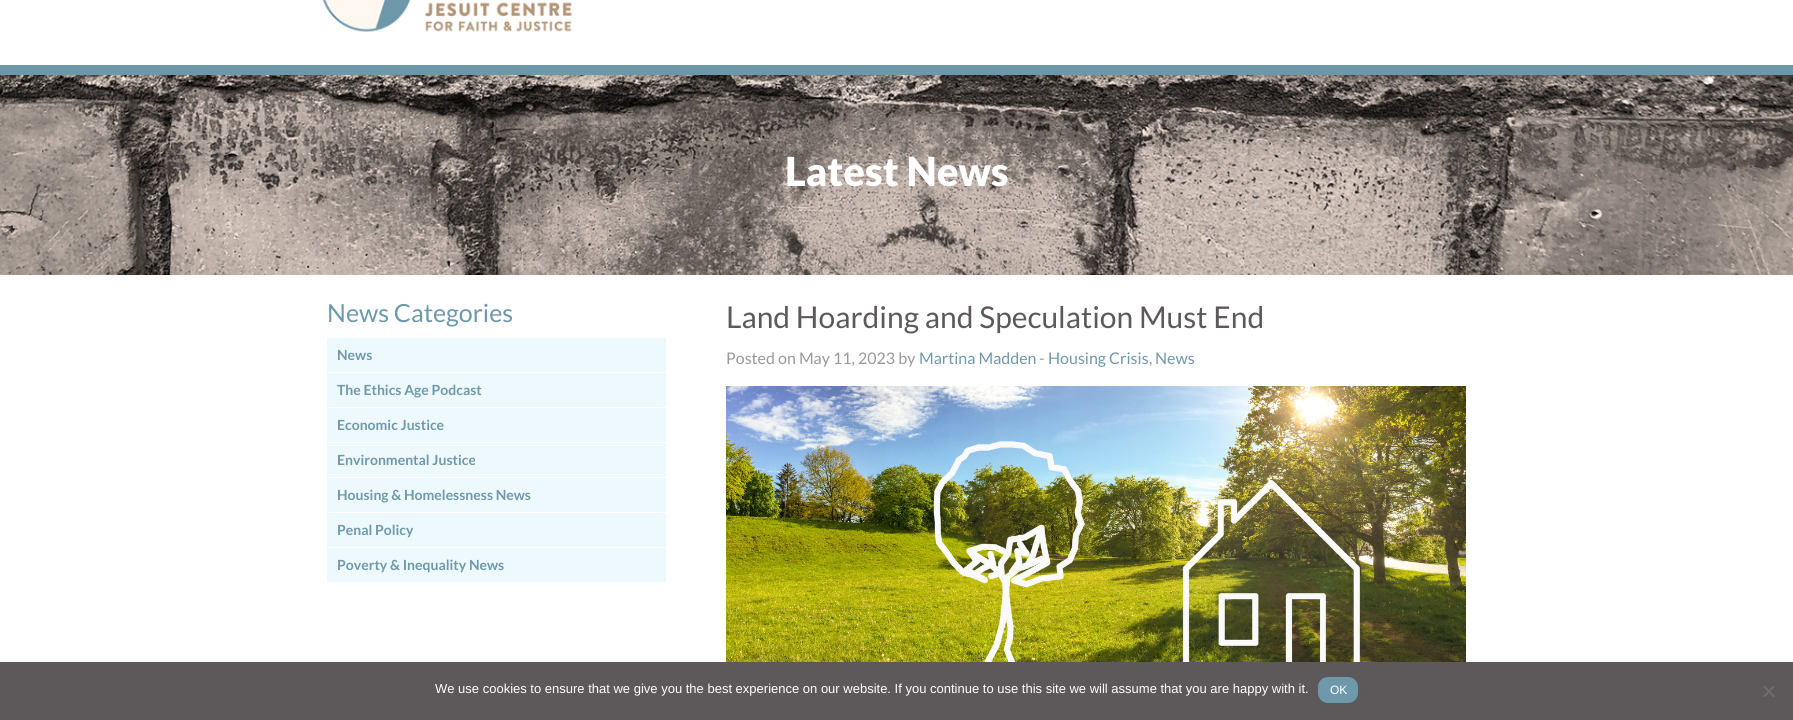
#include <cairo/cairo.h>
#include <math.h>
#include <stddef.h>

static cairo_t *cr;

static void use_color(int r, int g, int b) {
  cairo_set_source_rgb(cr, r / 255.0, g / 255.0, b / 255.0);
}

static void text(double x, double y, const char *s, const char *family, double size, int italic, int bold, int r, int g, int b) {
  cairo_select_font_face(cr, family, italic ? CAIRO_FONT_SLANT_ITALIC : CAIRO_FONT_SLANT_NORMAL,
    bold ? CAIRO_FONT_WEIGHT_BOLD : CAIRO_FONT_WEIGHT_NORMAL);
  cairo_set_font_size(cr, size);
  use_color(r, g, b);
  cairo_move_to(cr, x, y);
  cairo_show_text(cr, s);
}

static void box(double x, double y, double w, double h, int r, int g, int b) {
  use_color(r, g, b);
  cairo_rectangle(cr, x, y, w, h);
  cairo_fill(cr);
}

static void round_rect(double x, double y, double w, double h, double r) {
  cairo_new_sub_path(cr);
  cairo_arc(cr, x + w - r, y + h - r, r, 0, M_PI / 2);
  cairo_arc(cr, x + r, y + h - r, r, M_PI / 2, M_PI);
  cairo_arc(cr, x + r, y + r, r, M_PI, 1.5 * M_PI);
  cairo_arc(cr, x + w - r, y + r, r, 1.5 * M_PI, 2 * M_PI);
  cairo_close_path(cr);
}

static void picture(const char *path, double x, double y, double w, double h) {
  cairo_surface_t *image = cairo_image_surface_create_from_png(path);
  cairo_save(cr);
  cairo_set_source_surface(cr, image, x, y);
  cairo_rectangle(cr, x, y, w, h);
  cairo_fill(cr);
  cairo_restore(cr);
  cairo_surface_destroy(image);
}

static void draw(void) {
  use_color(255, 255, 255);
  cairo_paint(cr);
  picture("img_01.png", 0, 75, 1793, 200);
  box(0, 65, 1793, 10, 109, 152, 170);
  picture("img_02.png", 322, 0, 251, 32);
  box(327, 338, 339, 34, 238, 249, 254);
  box(327, 373, 339, 34, 238, 249, 254);
  box(327, 408, 339, 34, 238, 249, 254);
  box(327, 443, 339, 34, 238, 249, 254);
  box(327, 478, 339, 34, 238, 249, 254);
  box(327, 513, 339, 34, 238, 249, 254);
  box(327, 548, 339, 34, 238, 249, 254);
  picture("img_03.png", 726, 386, 740, 276);
  box(0, 662, 1793, 58, 93, 88, 90);
  use_color(109, 153, 170);
  round_rect(1318, 677, 40, 26, 10);
  cairo_fill(cr);
  use_color(111, 108, 109);
  cairo_new_path(cr);
  cairo_move_to(cr, 1773.5, 685.5);
  cairo_line_to(cr, 1775, 686.5);
  cairo_line_to(cr, 1764.5, 697.5);
  cairo_line_to(cr, 1763, 696);
  cairo_close_path(cr);
  cairo_fill(cr);
  cairo_new_path(cr);
  cairo_move_to(cr, 1763, 686.5);
  cairo_line_to(cr, 1764.5, 685.5);
  cairo_line_to(cr, 1775, 696);
  cairo_line_to(cr, 1773.5, 697.5);
  cairo_close_path(cr);
  cairo_fill(cr);
  text(785, 186, "Latest News", "Lato Black", 40, 0, 0, 255, 255, 255);
  text(327, 322, "News Categories", "Lato", 25, 0, 0, 109, 153, 170);
  text(337, 360, "News", "Lato", 14, 0, 1, 109, 153, 170);
  text(337, 395, "The Ethics Age Podcast", "Lato", 14, 0, 1, 109, 153, 170);
  text(337, 430, "Economic Justice", "Lato", 14, 0, 1, 109, 153, 170);
  text(337, 465, "Environmental Justice", "Lato", 14, 0, 1, 109, 153, 170);
  text(337, 500, "Housing & Homelessness News", "Lato", 14, 0, 1, 109, 153, 170);
  text(337, 535, "Penal Policy", "Lato", 14, 0, 1, 109, 153, 170);
  text(337, 570, "Poverty & Inequality News", "Lato", 14, 0, 1, 109, 153, 170);
  text(726, 328, "Land Hoarding and Speculation Must End", "Lato", 30, 0, 0, 94, 88, 91);
  text(726, 364, "Posted on May 11, 2023 by", "Lato", 16, 0, 0, 153, 153, 153);
  text(919, 364, "Martina Madden", "Lato", 16, 0, 0, 109, 153, 170);
  text(1039, 364, "-", "Lato", 16, 0, 0, 153, 153, 153);
  text(1048, 364, "Housing Crisis", "Lato", 16, 0, 0, 109, 153, 170);
  text(1155, 364, "News", "Lato", 16, 0, 0, 109, 153, 170);
  text(1149, 364, ",", "Lato", 16, 0, 0, 153, 153, 153);
  text(435, 693, "We use cookies to ensure that we give you the best experience on our website. If you continue to use this site we will assume that you are happy with it.", "Liberation Sans", 13, 0, 0, 255, 255, 255);
  text(1330, 694, "OK", "Liberation Sans", 12, 0, 0, 255, 255, 255);
}

int main(void) {
  cairo_surface_t *surface = cairo_image_surface_create(CAIRO_FORMAT_RGB24, 1793, 720);
  cr = cairo_create(surface);
  cairo_font_options_t *options = cairo_font_options_create();
  cairo_font_options_set_hint_metrics(options, CAIRO_HINT_METRICS_OFF);
  cairo_font_options_set_hint_style(options, CAIRO_HINT_STYLE_NONE);
  cairo_set_font_options(cr, options);
  cairo_set_miter_limit(cr, 4);
  draw();
  cairo_surface_write_to_png(surface, "out.png");
  cairo_font_options_destroy(options);
  cairo_destroy(cr);
  cairo_surface_destroy(surface);
  return 0;
}
